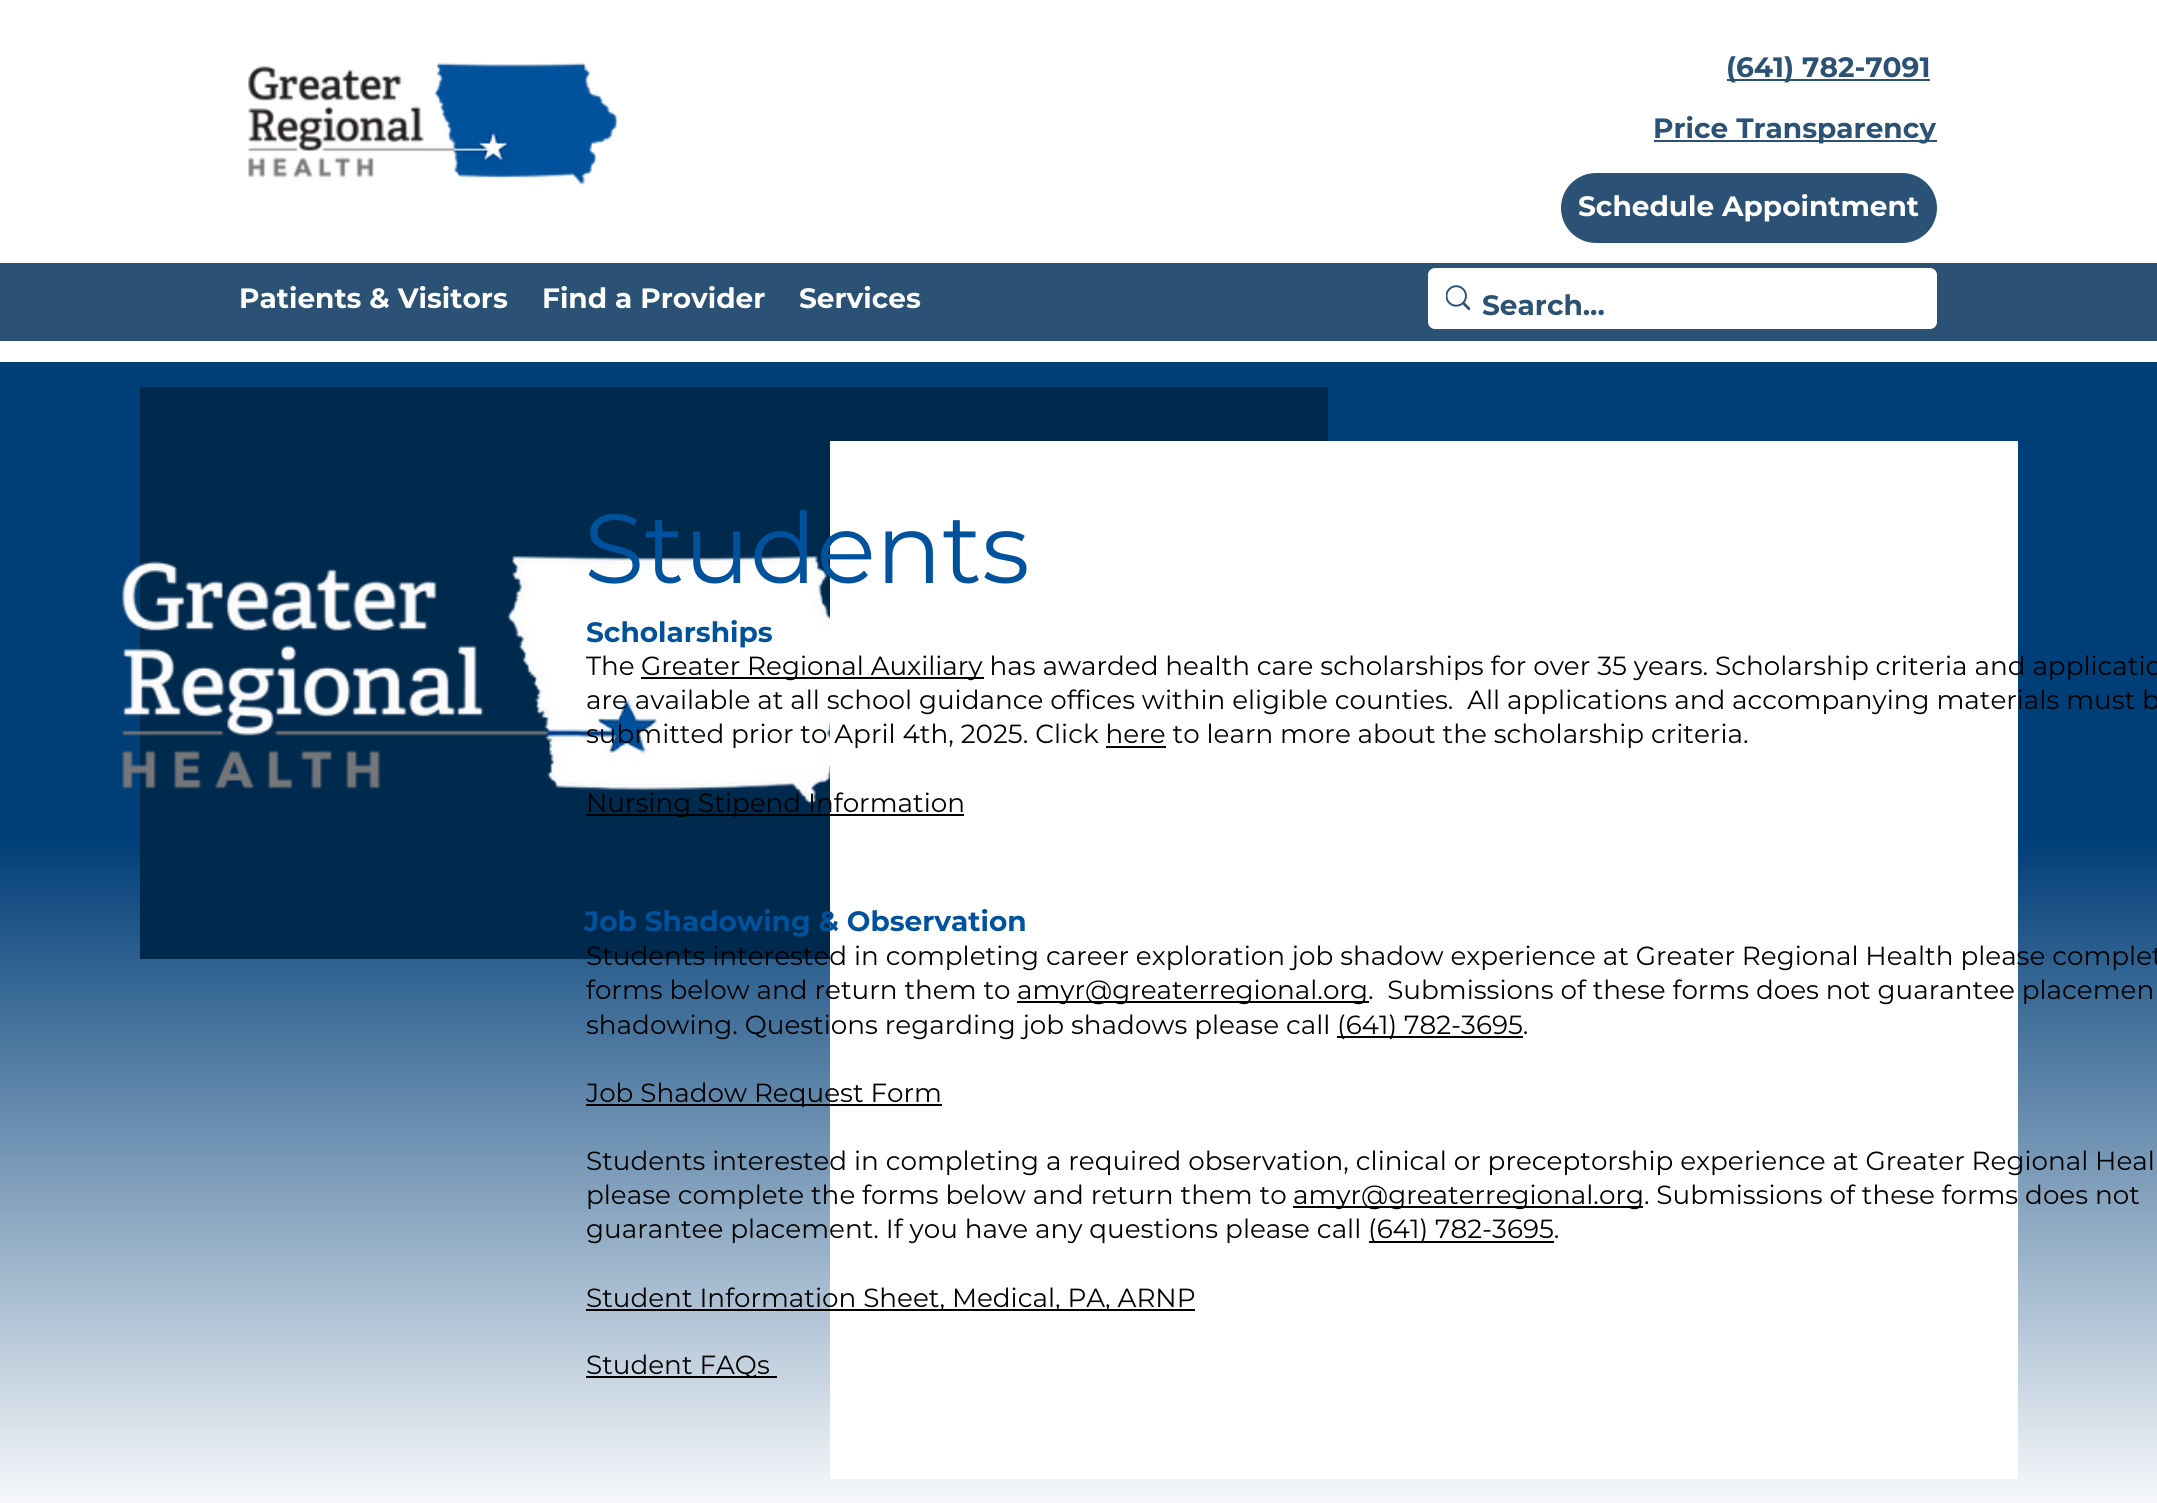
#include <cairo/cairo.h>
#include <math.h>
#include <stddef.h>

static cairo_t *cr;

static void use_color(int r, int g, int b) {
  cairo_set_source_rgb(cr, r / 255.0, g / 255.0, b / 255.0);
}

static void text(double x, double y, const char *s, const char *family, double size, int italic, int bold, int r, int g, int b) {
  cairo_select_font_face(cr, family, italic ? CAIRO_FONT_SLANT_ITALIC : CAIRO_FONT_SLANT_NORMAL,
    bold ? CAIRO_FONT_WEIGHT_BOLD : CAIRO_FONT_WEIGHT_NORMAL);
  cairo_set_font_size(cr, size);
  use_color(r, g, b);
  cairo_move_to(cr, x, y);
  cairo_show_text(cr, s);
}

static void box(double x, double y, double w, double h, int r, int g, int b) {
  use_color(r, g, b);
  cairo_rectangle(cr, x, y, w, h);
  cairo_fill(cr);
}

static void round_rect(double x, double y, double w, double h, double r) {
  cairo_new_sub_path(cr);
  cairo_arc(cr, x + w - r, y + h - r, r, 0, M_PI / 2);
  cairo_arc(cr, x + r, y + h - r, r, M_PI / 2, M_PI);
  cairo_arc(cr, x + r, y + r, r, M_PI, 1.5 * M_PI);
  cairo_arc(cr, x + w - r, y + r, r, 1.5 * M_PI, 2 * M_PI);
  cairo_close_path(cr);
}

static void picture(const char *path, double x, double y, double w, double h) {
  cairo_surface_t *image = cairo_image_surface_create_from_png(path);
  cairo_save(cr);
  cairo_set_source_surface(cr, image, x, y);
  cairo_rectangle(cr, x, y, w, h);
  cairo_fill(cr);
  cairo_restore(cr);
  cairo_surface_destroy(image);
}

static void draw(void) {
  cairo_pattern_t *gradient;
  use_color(255, 255, 255);
  cairo_paint(cr);
  picture("img_01.png", 248, 62, 370, 123);
  box(1727, 79, 203, 2, 43, 82, 116);
  box(1654, 140, 283, 2, 43, 82, 116);
  round_rect(1563, 175, 372, 66, 33);
  cairo_fill_preserve(cr);
  cairo_set_line_width(cr, 4);
  cairo_stroke(cr);
  box(0, 263, 2157, 78, 43, 82, 116);
  use_color(255, 255, 255);
  round_rect(1428, 268, 509, 61, 7);
  cairo_fill(cr);
  picture("img_02.png", 1446, 285, 24, 26);
  gradient = cairo_pattern_create_linear(1079, 362, 1079, 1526);
  cairo_pattern_add_color_stop_rgba(gradient, 0.41, 0, 0.243, 0.467, 1);
  cairo_pattern_add_color_stop_rgba(gradient, 1, 1, 1, 1, 1);
  cairo_set_source(cr, gradient);
  cairo_pattern_destroy(gradient);
  cairo_rectangle(cr, 0, 362, 2157, 1141);
  cairo_fill(cr);
  box(140, 387, 1188, 572, 0, 41, 78);
  picture("img_03.png", 122, 555, 708, 249);
  box(830, 441, 1188, 1038, 255, 255, 255);
  box(641, 677, 343, 2, 0, 0, 0);
  box(1106, 746, 60, 2, 0, 0, 0);
  box(586, 814, 378, 2, 0, 0, 0);
  box(1017, 1001, 352, 2, 0, 0, 0);
  box(1337, 1036, 186, 2, 0, 0, 0);
  box(586, 1104, 356, 2, 0, 0, 0);
  box(1293, 1206, 350, 2, 0, 0, 0);
  box(1369, 1241, 185, 2, 0, 0, 0);
  box(586, 1309, 609, 2, 0, 0, 0);
  box(586, 1376, 191, 2, 0, 0, 0);
  text(1726, 77, "(641) 782-7091", "Montserrat", 28, 0, 1, 43, 82, 116);
  text(1653, 138, "Price Transparency", "Montserrat", 28, 0, 1, 43, 82, 116);
  text(1578, 216, "Schedule Appointment", "Montserrat", 28, 0, 1, 255, 255, 255);
  text(239, 308, "Patients & Visitors", "Montserrat", 28, 0, 1, 255, 255, 255);
  text(542, 308, "Find a Provider", "Montserrat", 28, 0, 1, 255, 255, 255);
  text(799, 308, "Services", "Montserrat", 28, 0, 1, 255, 255, 255);
  text(1482, 315, "Search...", "Montserrat", 28, 0, 1, 43, 82, 116);
  text(584, 583, "Students", "Montserrat", 98, 0, 0, 0, 82, 156);
  text(586, 642, "Scholarships", "Montserrat", 28, 0, 1, 0, 82, 156);
  text(586, 675, "The", "Montserrat", 26.25, 0, 0, 0, 0, 0);
  text(641, 675, "Greater Regional Auxiliary has awarded health care scholarships for over 35 years. Scholarship criteria and applicatio", "Montserrat", 26.25, 0, 0, 0, 0, 0);
  text(586, 709, "are available at all school guidance offices within eligible counties.  All applications and accompanying materials must b", "Montserrat", 26.25, 0, 0, 0, 0, 0);
  text(586, 743, "submitted prior to April 4th, 2025. Click here to learn more about the scholarship criteria.", "Montserrat", 26.25, 0, 0, 0, 0, 0);
  text(586, 812, "Nursing Stipend Information", "Montserrat", 26.25, 0, 0, 0, 0, 0);
  text(584, 931, "Job Shadowing & Observation", "Montserrat", 28, 0, 1, 0, 82, 156);
  text(586, 965, "Students interested in completing career exploration job shadow experience at Greater Regional Health please complet", "Montserrat", 26.25, 0, 0, 0, 0, 0);
  text(586, 999, "forms below and return them to", "Montserrat", 26.25, 0, 0, 0, 0, 0);
  text(1017, 999, "amyr@greaterregional.org.  Submissions of these forms does not guarantee placemen", "Montserrat", 26.25, 0, 0, 0, 0, 0);
  text(586, 1034, "shadowing. Questions regarding job shadows please call", "Montserrat", 26.25, 0, 0, 0, 0, 0);
  text(1337, 1034, "(641) 782-3695.", "Montserrat", 26.25, 0, 0, 0, 0, 0);
  text(586, 1102, "Job Shadow Request Form", "Montserrat", 26.25, 0, 0, 0, 0, 0);
  text(586, 1170, "Students interested in completing a required observation, clinical or preceptorship experience at Greater Regional Heal", "Montserrat", 26.25, 0, 0, 0, 0, 0);
  text(586, 1204, "please complete the forms below and return them to", "Montserrat", 26.25, 0, 0, 0, 0, 0);
  text(1293, 1204, "amyr@greaterregional.org. Submissions of these forms does not", "Montserrat", 26.25, 0, 0, 0, 0, 0);
  text(586, 1238, "guarantee placement. If you have any questions please call", "Montserrat", 26.25, 0, 0, 0, 0, 0);
  text(1368, 1238, "(641) 782-3695.", "Montserrat", 26.25, 0, 0, 0, 0, 0);
  text(586, 1307, "Student Information Sheet, Medical, PA, ARNP", "Montserrat", 26.25, 0, 0, 0, 0, 0);
  text(586, 1374, "Student FAQs", "Montserrat", 26.25, 0, 0, 0, 0, 0);
}

int main(void) {
  cairo_surface_t *surface = cairo_image_surface_create(CAIRO_FORMAT_RGB24, 2157, 1503);
  cr = cairo_create(surface);
  cairo_font_options_t *options = cairo_font_options_create();
  cairo_font_options_set_hint_metrics(options, CAIRO_HINT_METRICS_OFF);
  cairo_font_options_set_hint_style(options, CAIRO_HINT_STYLE_NONE);
  cairo_set_font_options(cr, options);
  cairo_set_miter_limit(cr, 4);
  draw();
  cairo_surface_write_to_png(surface, "out.png");
  cairo_font_options_destroy(options);
  cairo_destroy(cr);
  cairo_surface_destroy(surface);
  return 0;
}
